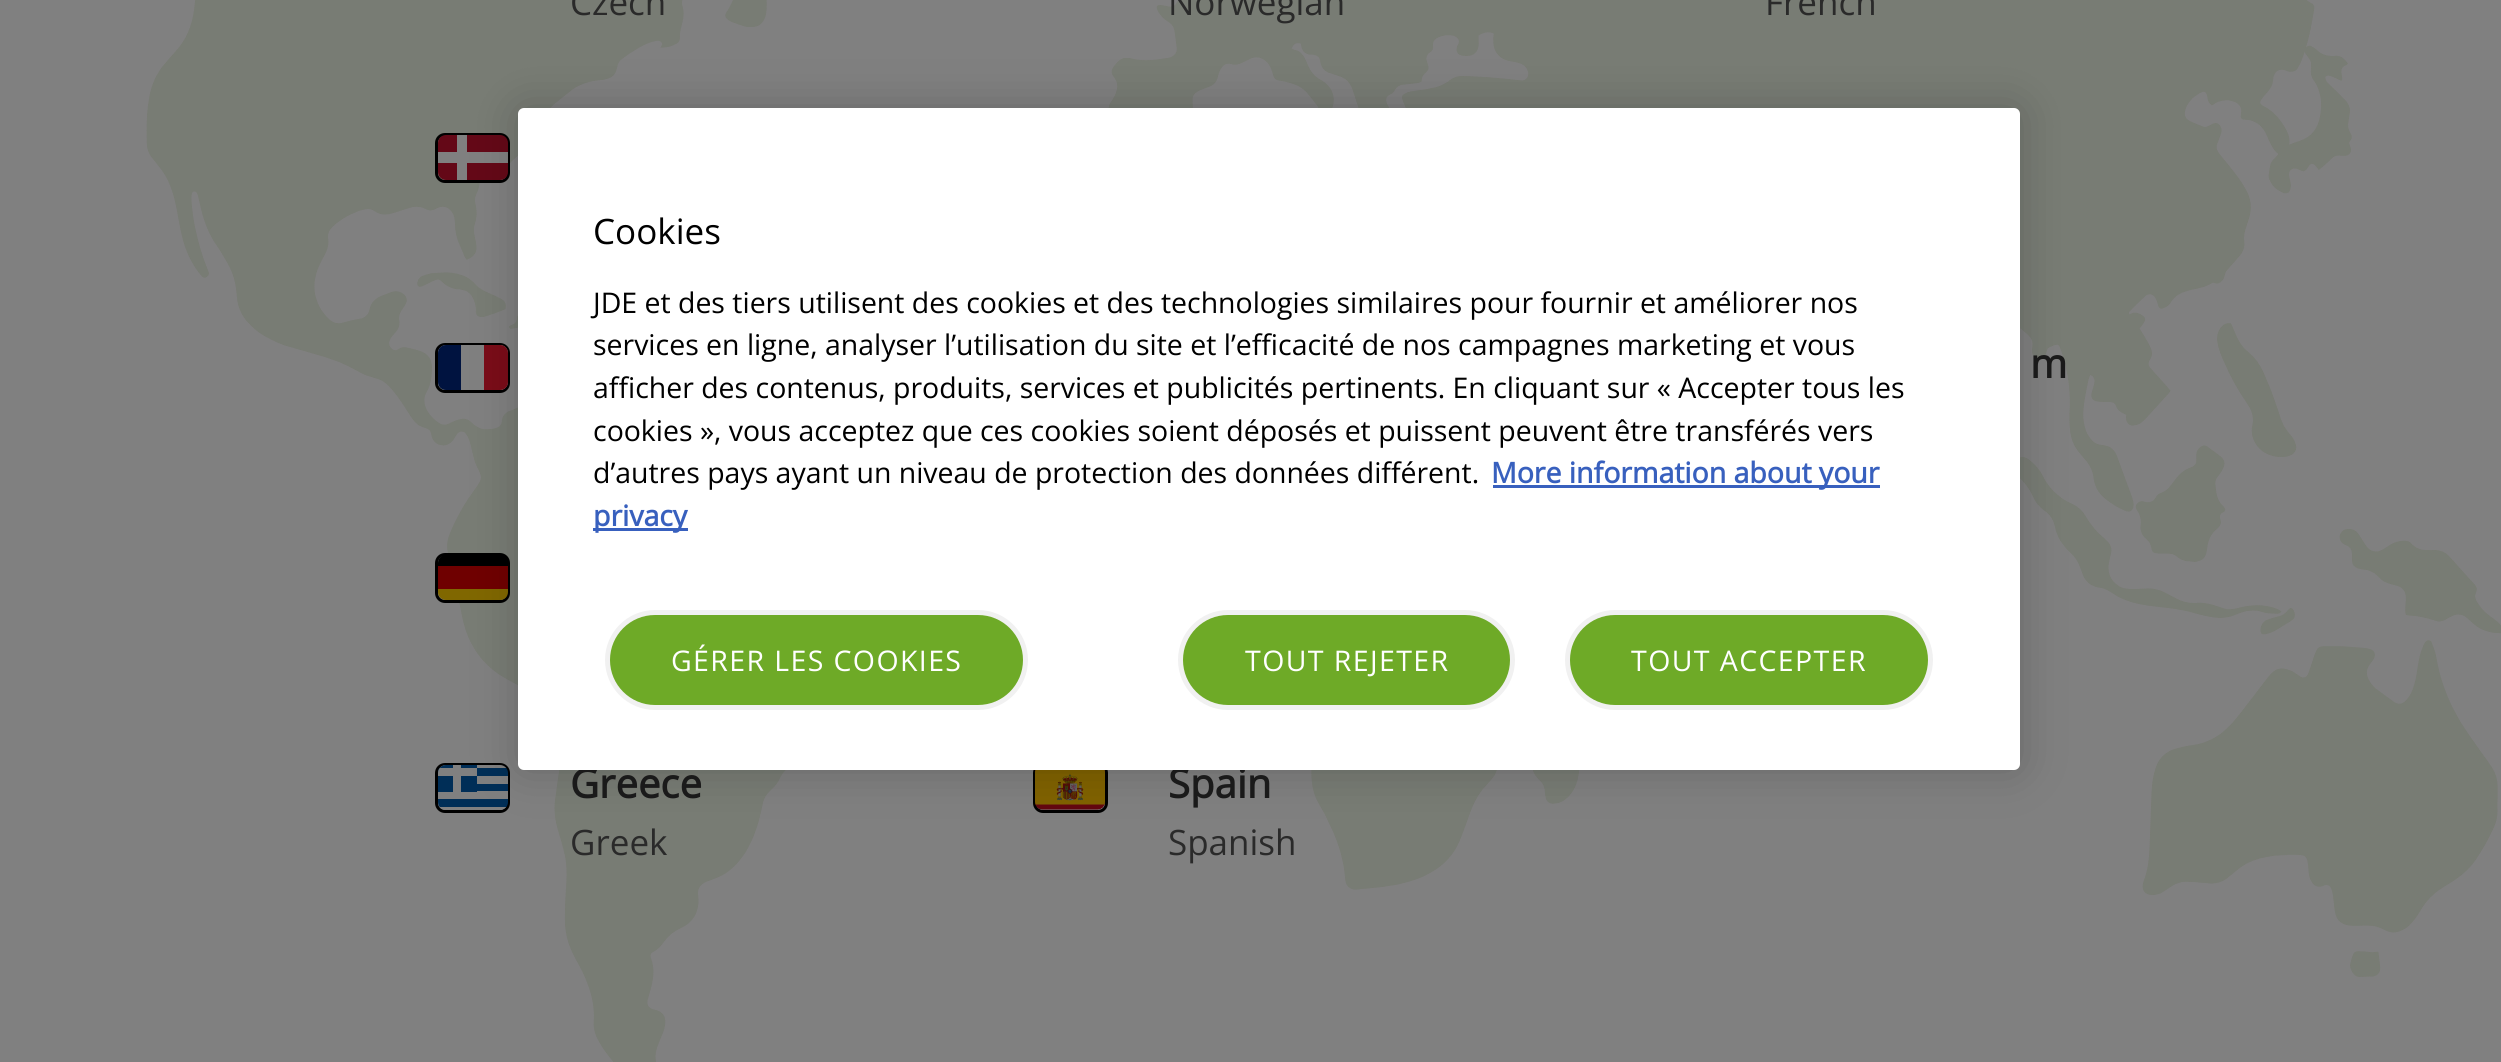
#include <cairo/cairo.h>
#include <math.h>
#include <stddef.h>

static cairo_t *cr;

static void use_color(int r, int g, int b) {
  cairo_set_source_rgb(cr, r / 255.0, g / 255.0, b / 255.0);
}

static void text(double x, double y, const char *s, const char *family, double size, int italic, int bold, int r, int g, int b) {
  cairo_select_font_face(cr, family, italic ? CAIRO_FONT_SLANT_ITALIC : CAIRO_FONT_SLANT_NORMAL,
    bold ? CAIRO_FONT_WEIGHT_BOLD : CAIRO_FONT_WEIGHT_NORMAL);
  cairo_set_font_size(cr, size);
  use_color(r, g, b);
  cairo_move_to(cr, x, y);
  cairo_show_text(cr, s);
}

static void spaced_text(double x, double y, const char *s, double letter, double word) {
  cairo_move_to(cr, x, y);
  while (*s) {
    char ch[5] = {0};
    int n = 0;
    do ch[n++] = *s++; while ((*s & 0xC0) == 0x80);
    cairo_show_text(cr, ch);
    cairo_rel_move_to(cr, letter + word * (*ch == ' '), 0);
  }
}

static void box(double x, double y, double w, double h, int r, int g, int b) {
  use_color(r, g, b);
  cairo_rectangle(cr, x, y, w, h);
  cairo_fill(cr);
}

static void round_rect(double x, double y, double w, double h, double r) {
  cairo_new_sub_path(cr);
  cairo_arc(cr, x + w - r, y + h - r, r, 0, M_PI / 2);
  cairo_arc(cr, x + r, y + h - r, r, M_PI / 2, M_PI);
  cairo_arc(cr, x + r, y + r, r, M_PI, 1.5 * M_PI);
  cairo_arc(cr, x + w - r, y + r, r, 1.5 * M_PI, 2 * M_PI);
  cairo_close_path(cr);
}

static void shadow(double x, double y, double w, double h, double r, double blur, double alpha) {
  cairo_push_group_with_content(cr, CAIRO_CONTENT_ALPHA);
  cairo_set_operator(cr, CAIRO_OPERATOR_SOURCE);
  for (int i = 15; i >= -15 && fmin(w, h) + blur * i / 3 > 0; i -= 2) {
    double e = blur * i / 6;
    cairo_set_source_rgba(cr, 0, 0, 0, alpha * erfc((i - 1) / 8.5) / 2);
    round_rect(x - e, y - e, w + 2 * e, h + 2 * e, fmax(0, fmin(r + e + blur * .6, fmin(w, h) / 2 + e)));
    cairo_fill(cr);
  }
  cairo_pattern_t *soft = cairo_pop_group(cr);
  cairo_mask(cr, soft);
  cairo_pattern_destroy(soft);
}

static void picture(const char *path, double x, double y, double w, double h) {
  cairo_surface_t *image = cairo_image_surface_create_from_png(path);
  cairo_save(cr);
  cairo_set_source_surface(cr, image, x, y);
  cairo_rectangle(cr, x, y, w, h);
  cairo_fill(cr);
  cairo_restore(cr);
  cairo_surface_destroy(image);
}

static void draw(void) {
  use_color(128, 128, 128);
  cairo_paint(cr);
  picture("img_01.png", 146, 0, 2355, 1062);
  round_rect(436.5, 134.5, 72, 47, 8.5);
  use_color(0, 0, 0);
  cairo_set_line_width(cr, 3);
  cairo_stroke(cr);
  use_color(100, 8, 23);
  round_rect(438, 135, 70, 45, 8);
  cairo_fill(cr);
  box(457, 135, 10, 45, 128, 128, 128);
  box(438, 152, 70, 11, 128, 128, 128);
  round_rect(436.5, 344.5, 72, 47, 8.5);
  use_color(0, 0, 0);
  cairo_stroke(cr);
  use_color(128, 128, 128);
  round_rect(438, 345, 70, 45, 8);
  cairo_fill(cr);
  use_color(0, 19, 64);
  cairo_new_path(cr);
  cairo_move_to(cr, 446, 345);
  cairo_line_to(cr, 461, 345);
  cairo_line_to(cr, 461, 390);
  cairo_line_to(cr, 446, 390);
  cairo_curve_to(cr, 441.5, 390, 438, 386.5, 438, 382);
  cairo_line_to(cr, 438, 353);
  cairo_curve_to(cr, 438, 348.5, 441.5, 345, 446, 345);
  cairo_close_path(cr);
  cairo_fill(cr);
  use_color(122, 12, 24);
  cairo_new_path(cr);
  cairo_move_to(cr, 484, 345);
  cairo_line_to(cr, 500, 345);
  cairo_curve_to(cr, 504.5, 345, 508, 348.5, 508, 353);
  cairo_line_to(cr, 508, 382);
  cairo_curve_to(cr, 508, 386.5, 504.5, 390, 500, 390);
  cairo_line_to(cr, 484, 390);
  cairo_close_path(cr);
  cairo_fill(cr);
  round_rect(436.5, 554.5, 72, 47, 8.5);
  use_color(0, 0, 0);
  cairo_stroke(cr);
  use_color(128, 103, 0);
  cairo_new_path(cr);
  cairo_move_to(cr, 438, 589);
  cairo_line_to(cr, 508, 589);
  cairo_line_to(cr, 508, 592);
  cairo_curve_to(cr, 508, 596.5, 504.5, 600, 500, 600);
  cairo_line_to(cr, 446, 600);
  cairo_curve_to(cr, 441.5, 600, 438, 596.5, 438, 592);
  cairo_close_path(cr);
  cairo_fill(cr);
  use_color(0, 0, 0);
  cairo_new_path(cr);
  cairo_move_to(cr, 446, 555);
  cairo_line_to(cr, 500, 555);
  cairo_curve_to(cr, 504.5, 555, 508, 558.5, 508, 563);
  cairo_line_to(cr, 508, 566);
  cairo_line_to(cr, 438, 566);
  cairo_line_to(cr, 438, 563);
  cairo_curve_to(cr, 438, 558.5, 441.5, 555, 446, 555);
  cairo_close_path(cr);
  cairo_fill(cr);
  box(438, 566, 70, 23, 111, 0, 0);
  round_rect(436.5, 764.5, 72, 47, 8.5);
  use_color(0, 0, 0);
  cairo_stroke(cr);
  cairo_save(cr);
  round_rect(438, 765, 70, 45, 8);
  cairo_clip(cr);
  box(438, 765, 70, 3, 128, 128, 128);
  box(438, 768, 70, 8, 0, 46, 87);
  cairo_restore(cr);
  box(507, 776, 1, 8, 128, 128, 128);
  box(477, 784, 31, 7, 0, 46, 87);
  box(507, 791, 1, 8, 128, 128, 128);
  cairo_save(cr);
  round_rect(438, 765, 70, 45, 8);
  cairo_clip(cr);
  box(438, 799, 70, 8, 0, 46, 87);
  box(438, 807, 70, 3, 128, 128, 128);
  cairo_restore(cr);
  use_color(0, 46, 87);
  cairo_new_path(cr);
  cairo_move_to(cr, 446, 765);
  cairo_line_to(cr, 477, 765);
  cairo_line_to(cr, 477, 792);
  cairo_line_to(cr, 438, 792);
  cairo_line_to(cr, 438, 773);
  cairo_curve_to(cr, 438, 768.5, 441.5, 765, 446, 765);
  cairo_close_path(cr);
  cairo_fill(cr);
  box(453, 765, 8, 27, 128, 128, 128);
  cairo_save(cr);
  round_rect(438, 765, 70, 45, 8);
  cairo_clip(cr);
  box(438, 768, 39, 8, 128, 128, 128);
  cairo_restore(cr);
  round_rect(1034.5, 764.5, 72, 47, 8.5);
  use_color(0, 0, 0);
  cairo_stroke(cr);
  picture("img_02.png", 1035, 770, 70, 40);
  use_color(0, 0, 0);
  shadow(518, 108, 1502, 662, 6, 22.5, 0.2);
  text(570, 15, "Czech", "Open Sans", 35, 0, 0, 42, 42, 42);
  text(1168, 15, "Norwegian", "Open Sans", 35, 0, 0, 42, 42, 42);
  text(1765, 15, "French", "Open Sans", 35, 0, 0, 42, 42, 42);
  text(2030, 378, "m", "Open Sans", 40, 0, 1, 26, 26, 26);
  text(570, 798, "Greece", "Open Sans", 40, 0, 1, 26, 26, 26);
  text(570, 855, "Greek", "Open Sans", 35, 0, 0, 42, 42, 42);
  text(1168, 798, "Spain", "Open Sans", 40, 0, 1, 26, 26, 26);
  text(1168, 855, "Spanish", "Open Sans", 35, 0, 0, 42, 42, 42);
  use_color(255, 255, 255);
  round_rect(518, 108, 1502, 662, 6);
  cairo_fill(cr);
  text(593, 244, "Cookies", "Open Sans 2", 35, 0, 0, 0, 0, 0);
  text(593, 313, "JDE et des tiers utilisent des cookies et des technologies similaires pour fournir et améliorer nos", "Open Sans", 28.45, 0, 0, 0, 0, 0);
  text(593, 355, "services en ligne, analyser l’utilisation du site et l’efficacité de nos campagnes marketing et vous", "Open Sans", 28.45, 0, 0, 0, 0, 0);
  text(593, 398, "afficher des contenus, produits, services et publicités pertinents. En cliquant sur « Accepter tous les", "Open Sans", 28.45, 0, 0, 0, 0, 0);
  text(593, 441, "cookies », vous acceptez que ces cookies soient déposés et puissent peuvent être transférés vers", "Open Sans", 28.45, 0, 0, 0, 0, 0);
  text(593, 483, "d’autres pays ayant un niveau de protection des données différent.", "Open Sans", 28.45, 0, 0, 0, 0, 0);
  box(1493, 485, 387, 3, 56, 96, 190);
  text(1491, 483, "More information about your", "Open Sans", 28.45, 0, 1, 56, 96, 190);
  box(593, 528, 95, 3, 56, 96, 190);
  text(593, 526, "privacy", "Open Sans", 28.45, 0, 1, 56, 96, 190);
  use_color(110, 170, 39);
  round_rect(607.5, 612.5, 418, 95, 47.5);
  cairo_fill_preserve(cr);
  use_color(241, 241, 241);
  cairo_set_line_width(cr, 5);
  cairo_stroke(cr);
  cairo_select_font_face(cr, "Open Sans 2", CAIRO_FONT_SLANT_NORMAL, CAIRO_FONT_WEIGHT_NORMAL);
  use_color(255, 255, 255);
  spaced_text(671, 671, "GÉRER LES COOKIES", 1.4, 0);
  use_color(110, 170, 39);
  round_rect(1180.5, 612.5, 332, 95, 47.5);
  cairo_fill_preserve(cr);
  use_color(241, 241, 241);
  cairo_stroke(cr);
  use_color(255, 255, 255);
  spaced_text(1245, 671, "TOUT REJETER", 1.4, 0);
  use_color(110, 170, 39);
  round_rect(1567.5, 612.5, 363, 95, 47.5);
  cairo_fill_preserve(cr);
  use_color(241, 241, 241);
  cairo_stroke(cr);
  use_color(255, 255, 255);
  spaced_text(1631, 671, "TOUT ACCEPTER", 1.4, 0);
}

int main(void) {
  cairo_surface_t *surface = cairo_image_surface_create(CAIRO_FORMAT_RGB24, 2501, 1062);
  cr = cairo_create(surface);
  cairo_font_options_t *options = cairo_font_options_create();
  cairo_font_options_set_hint_metrics(options, CAIRO_HINT_METRICS_OFF);
  cairo_font_options_set_hint_style(options, CAIRO_HINT_STYLE_NONE);
  cairo_set_font_options(cr, options);
  cairo_set_miter_limit(cr, 4);
  draw();
  cairo_surface_write_to_png(surface, "out.png");
  cairo_font_options_destroy(options);
  cairo_destroy(cr);
  cairo_surface_destroy(surface);
  return 0;
}
